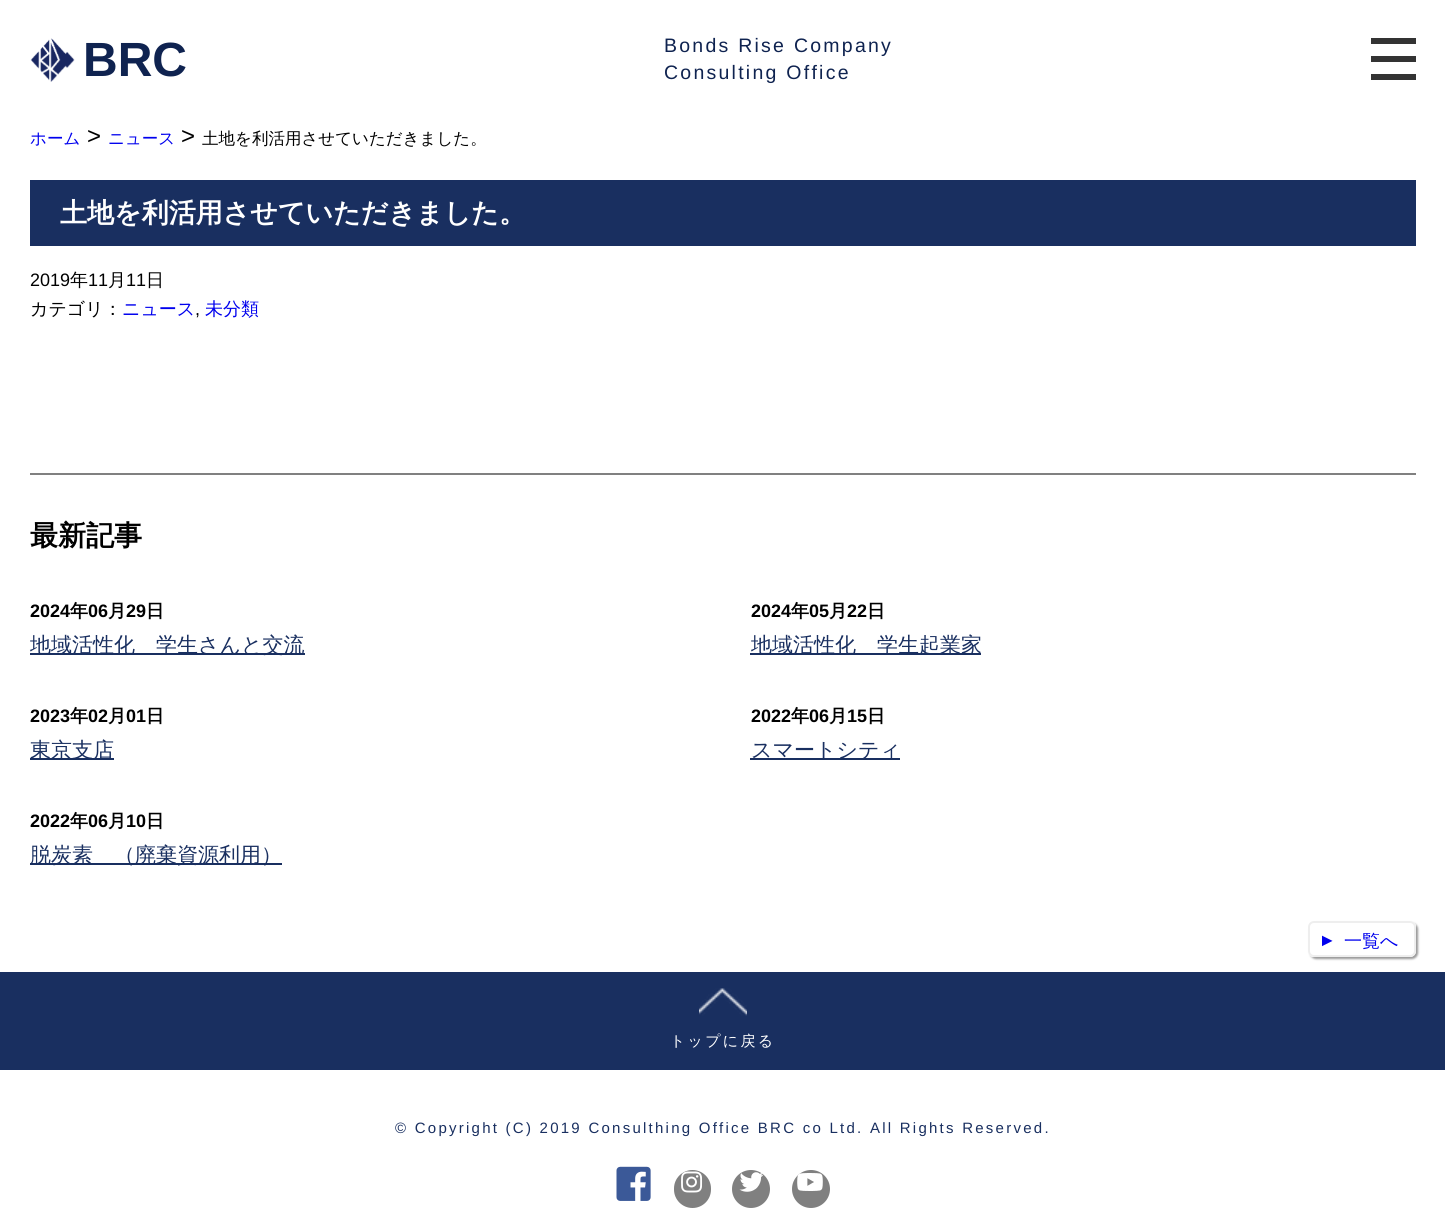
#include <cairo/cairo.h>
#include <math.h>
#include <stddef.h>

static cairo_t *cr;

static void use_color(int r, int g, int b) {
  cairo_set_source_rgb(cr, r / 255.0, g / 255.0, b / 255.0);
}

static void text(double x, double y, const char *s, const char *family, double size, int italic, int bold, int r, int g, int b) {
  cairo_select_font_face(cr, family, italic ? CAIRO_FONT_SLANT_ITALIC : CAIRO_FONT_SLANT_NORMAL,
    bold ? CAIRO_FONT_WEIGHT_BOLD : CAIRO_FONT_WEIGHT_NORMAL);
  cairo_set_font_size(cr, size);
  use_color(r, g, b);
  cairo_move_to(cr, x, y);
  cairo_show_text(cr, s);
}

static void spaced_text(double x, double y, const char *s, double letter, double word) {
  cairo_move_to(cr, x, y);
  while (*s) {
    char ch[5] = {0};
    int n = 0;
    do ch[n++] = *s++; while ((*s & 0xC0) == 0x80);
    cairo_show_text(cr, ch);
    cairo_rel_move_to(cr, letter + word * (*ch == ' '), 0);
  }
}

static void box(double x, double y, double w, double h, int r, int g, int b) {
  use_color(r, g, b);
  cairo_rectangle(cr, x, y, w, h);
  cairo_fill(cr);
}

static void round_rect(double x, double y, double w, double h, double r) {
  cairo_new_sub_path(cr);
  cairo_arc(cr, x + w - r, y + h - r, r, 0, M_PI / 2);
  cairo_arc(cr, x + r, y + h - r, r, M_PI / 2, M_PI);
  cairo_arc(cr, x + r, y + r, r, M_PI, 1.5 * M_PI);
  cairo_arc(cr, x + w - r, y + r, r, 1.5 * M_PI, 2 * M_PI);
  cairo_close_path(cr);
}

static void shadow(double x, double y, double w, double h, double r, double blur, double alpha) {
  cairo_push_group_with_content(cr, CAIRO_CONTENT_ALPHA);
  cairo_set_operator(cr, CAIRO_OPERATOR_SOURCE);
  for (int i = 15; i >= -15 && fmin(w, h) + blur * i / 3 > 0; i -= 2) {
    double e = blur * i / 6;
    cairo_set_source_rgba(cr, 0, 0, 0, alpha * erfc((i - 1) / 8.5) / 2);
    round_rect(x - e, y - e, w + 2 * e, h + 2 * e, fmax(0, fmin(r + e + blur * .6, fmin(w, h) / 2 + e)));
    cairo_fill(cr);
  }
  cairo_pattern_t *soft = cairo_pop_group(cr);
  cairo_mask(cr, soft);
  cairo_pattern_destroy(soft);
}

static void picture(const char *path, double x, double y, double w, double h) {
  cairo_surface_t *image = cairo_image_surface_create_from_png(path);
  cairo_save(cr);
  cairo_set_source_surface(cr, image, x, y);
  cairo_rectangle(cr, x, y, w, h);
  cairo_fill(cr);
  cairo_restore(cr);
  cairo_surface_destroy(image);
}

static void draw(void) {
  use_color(255, 255, 255);
  cairo_paint(cr);
  picture("img_01.png", 30, 38, 45, 44);
  box(1371, 38, 45, 6, 51, 51, 51);
  box(1371, 56, 45, 6, 51, 51, 51);
  box(1371, 74, 45, 6, 51, 51, 51);
  box(30, 180, 1386, 66, 25, 47, 96);
  box(30, 473, 1386, 2, 128, 128, 128);
  box(30, 653, 275, 2, 25, 47, 96);
  box(750, 653, 231, 2, 25, 47, 96);
  box(30, 758, 84, 2, 25, 47, 96);
  box(750, 758, 150, 2, 25, 47, 96);
  box(30, 863, 252, 2, 25, 47, 96);
  cairo_save(cr);
  cairo_set_fill_rule(cr, CAIRO_FILL_RULE_EVEN_ODD);
  cairo_new_path(cr);
  cairo_move_to(cr, 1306, 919);
  cairo_line_to(cr, 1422, 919);
  cairo_line_to(cr, 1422, 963);
  cairo_line_to(cr, 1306, 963);
  cairo_close_path(cr);
  cairo_move_to(cr, 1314, 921);
  cairo_line_to(cr, 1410, 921);
  cairo_curve_to(cr, 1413.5, 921, 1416, 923.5, 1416, 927);
  cairo_line_to(cr, 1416, 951);
  cairo_curve_to(cr, 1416, 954.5, 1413.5, 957, 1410, 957);
  cairo_line_to(cr, 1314, 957);
  cairo_curve_to(cr, 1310.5, 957, 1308, 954.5, 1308, 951);
  cairo_line_to(cr, 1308, 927);
  cairo_curve_to(cr, 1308, 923.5, 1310.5, 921, 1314, 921);
  cairo_close_path(cr);
  cairo_clip(cr);
  use_color(153, 153, 153);
  shadow(1310, 923, 108, 36, 6, 1, 1);
  cairo_restore(cr);
  round_rect(1309, 922, 106, 34, 5);
  use_color(238, 238, 238);
  cairo_stroke(cr);
  box(0, 972, 1445, 98, 25, 47, 96);
  picture("img_02.png", 699, 988, 48, 28);
  picture("img_03.png", 616, 1166, 35, 35);
  use_color(128, 128, 128);
  round_rect(674, 1170, 37, 38, 18.5);
  cairo_fill(cr);
  picture("img_04.png", 681, 1171, 22, 22);
  cairo_arc(cr, 751, 1189, 19, 0, 2 * M_PI);
  cairo_fill(cr);
  picture("img_05.png", 739, 1172, 24, 20);
  cairo_arc(cr, 811, 1189, 19, 0, 2 * M_PI);
  cairo_fill(cr);
  picture("img_06.png", 797, 1173, 26, 18);
  text(83, 76, "BRC", "Liberation Sans", 48, 0, 1, 15, 35, 80);
  cairo_select_font_face(cr, "Liberation Sans", CAIRO_FONT_SLANT_NORMAL, CAIRO_FONT_WEIGHT_NORMAL);
  cairo_set_font_size(cr, 19.5);
  spaced_text(664, 52, "Bonds Rise Company", 2.25, 0);
  spaced_text(664, 79, "Consulting Office", 2.25, 0);
  text(30, 144, "ホーム", "WenQuanYi Zen Hei Medium", 16.5, 0, 0, 0, 0, 238);
  text(87, 144, ">", "Liberation Sans", 24, 0, 0, 0, 0, 0);
  text(108, 144, "ニュース", "WenQuanYi Zen Hei Medium", 16.5, 0, 0, 0, 0, 238);
  text(181, 144, ">", "Liberation Sans", 24, 0, 0, 0, 0, 0);
  text(202, 144, "土地を利活用させていただきました。", "WenQuanYi Zen Hei Medium", 16.5, 0, 0, 0, 0, 0);
  text(60, 222, "土地を利活用させていただきました。", "WenQuanYi Zen Hei", 27, 0, 1, 255, 255, 255);
  text(30, 286, "2019", "Liberation Sans", 18, 0, 0, 0, 0, 0);
  text(70, 286, "年", "WenQuanYi Zen Hei Medium", 18, 0, 0, 0, 0, 0);
  text(88, 286, "11", "Liberation Sans", 18, 0, 0, 0, 0, 0);
  text(108, 286, "月", "WenQuanYi Zen Hei Medium", 18, 0, 0, 0, 0, 0);
  text(126, 286, "11", "Liberation Sans", 18, 0, 0, 0, 0, 0);
  text(146, 286, "日", "WenQuanYi Zen Hei Medium", 18, 0, 0, 0, 0, 0);
  text(30, 315, "カテゴリ：", "WenQuanYi Zen Hei Medium", 18, 0, 0, 0, 0, 0);
  text(122, 315, "ニュース", "WenQuanYi Zen Hei Medium", 18, 0, 0, 0, 0, 238);
  text(195, 315, ",", "Liberation Sans", 18, 0, 0, 0, 0, 0);
  text(205, 315, "未分類", "WenQuanYi Zen Hei Medium", 18, 0, 0, 0, 0, 238);
  text(30, 545, "最新記事", "WenQuanYi Zen Hei", 28, 0, 1, 0, 0, 0);
  text(30, 617, "2024", "Liberation Sans", 18, 0, 1, 0, 0, 0);
  text(70, 617, "年", "WenQuanYi Zen Hei", 18, 0, 1, 0, 0, 0);
  text(88, 617, "06", "Liberation Sans", 18, 0, 1, 0, 0, 0);
  text(108, 617, "月", "WenQuanYi Zen Hei", 18, 0, 1, 0, 0, 0);
  text(126, 617, "29", "Liberation Sans", 18, 0, 1, 0, 0, 0);
  text(146, 617, "日", "WenQuanYi Zen Hei", 18, 0, 1, 0, 0, 0);
  text(30, 652, "地域活性化　学生さんと交流", "WenQuanYi Zen Hei Medium", 21, 0, 0, 25, 47, 96);
  text(751, 617, "2024", "Liberation Sans", 18, 0, 1, 0, 0, 0);
  text(791, 617, "年", "WenQuanYi Zen Hei", 18, 0, 1, 0, 0, 0);
  text(809, 617, "05", "Liberation Sans", 18, 0, 1, 0, 0, 0);
  text(829, 617, "月", "WenQuanYi Zen Hei", 18, 0, 1, 0, 0, 0);
  text(847, 617, "22", "Liberation Sans", 18, 0, 1, 0, 0, 0);
  text(867, 617, "日", "WenQuanYi Zen Hei", 18, 0, 1, 0, 0, 0);
  text(751, 652, "地域活性化　学生起業家", "WenQuanYi Zen Hei Medium", 21, 0, 0, 25, 47, 96);
  text(30, 722, "2023", "Liberation Sans", 18, 0, 1, 0, 0, 0);
  text(70, 722, "年", "WenQuanYi Zen Hei", 18, 0, 1, 0, 0, 0);
  text(88, 722, "02", "Liberation Sans", 18, 0, 1, 0, 0, 0);
  text(108, 722, "月", "WenQuanYi Zen Hei", 18, 0, 1, 0, 0, 0);
  text(126, 722, "01", "Liberation Sans", 18, 0, 1, 0, 0, 0);
  text(146, 722, "日", "WenQuanYi Zen Hei", 18, 0, 1, 0, 0, 0);
  text(30, 757, "東京支店", "WenQuanYi Zen Hei Medium", 21, 0, 0, 25, 47, 96);
  text(751, 722, "2022", "Liberation Sans", 18, 0, 1, 0, 0, 0);
  text(791, 722, "年", "WenQuanYi Zen Hei", 18, 0, 1, 0, 0, 0);
  text(809, 722, "06", "Liberation Sans", 18, 0, 1, 0, 0, 0);
  text(829, 722, "月", "WenQuanYi Zen Hei", 18, 0, 1, 0, 0, 0);
  text(847, 722, "15", "Liberation Sans", 18, 0, 1, 0, 0, 0);
  text(867, 722, "日", "WenQuanYi Zen Hei", 18, 0, 1, 0, 0, 0);
  text(751, 757, "スマートシティ", "WenQuanYi Zen Hei Medium", 21, 0, 0, 25, 47, 96);
  text(30, 827, "2022", "Liberation Sans", 18, 0, 1, 0, 0, 0);
  text(70, 827, "年", "WenQuanYi Zen Hei", 18, 0, 1, 0, 0, 0);
  text(88, 827, "06", "Liberation Sans", 18, 0, 1, 0, 0, 0);
  text(108, 827, "月", "WenQuanYi Zen Hei", 18, 0, 1, 0, 0, 0);
  text(126, 827, "10", "Liberation Sans", 18, 0, 1, 0, 0, 0);
  text(146, 827, "日", "WenQuanYi Zen Hei", 18, 0, 1, 0, 0, 0);
  text(30, 862, "脱炭素　（廃棄資源利用）", "WenQuanYi Zen Hei Medium", 21, 0, 0, 25, 47, 96);
  cairo_save(cr);
  cairo_translate(cr, 1322, 932);
  cairo_rotate(cr, 90 * M_PI / 180);
  text(0, 0, "▲", "Liberation Sans", 18, 0, 0, 0, 0, 238);
  cairo_restore(cr);
  text(1344, 947, "一覧へ", "WenQuanYi Zen Hei Medium", 18, 0, 0, 0, 0, 238);
  cairo_set_font_size(cr, 15);
  use_color(255, 255, 255);
  spaced_text(670, 1046, "トップに戻る", 2.25, 0);
  cairo_select_font_face(cr, "Liberation Sans", CAIRO_FONT_SLANT_NORMAL, CAIRO_FONT_WEIGHT_NORMAL);
  use_color(25, 47, 96);
  spaced_text(395, 1133, "© Copyright (C) 2019 Consulthing Office BRC co Ltd. All Rights Reserved.", 2.25, 0);
}

int main(void) {
  cairo_surface_t *surface = cairo_image_surface_create(CAIRO_FORMAT_RGB24, 1445, 1212);
  cr = cairo_create(surface);
  cairo_font_options_t *options = cairo_font_options_create();
  cairo_font_options_set_hint_metrics(options, CAIRO_HINT_METRICS_OFF);
  cairo_font_options_set_hint_style(options, CAIRO_HINT_STYLE_NONE);
  cairo_set_font_options(cr, options);
  cairo_set_miter_limit(cr, 4);
  draw();
  cairo_surface_write_to_png(surface, "out.png");
  cairo_font_options_destroy(options);
  cairo_destroy(cr);
  cairo_surface_destroy(surface);
  return 0;
}
